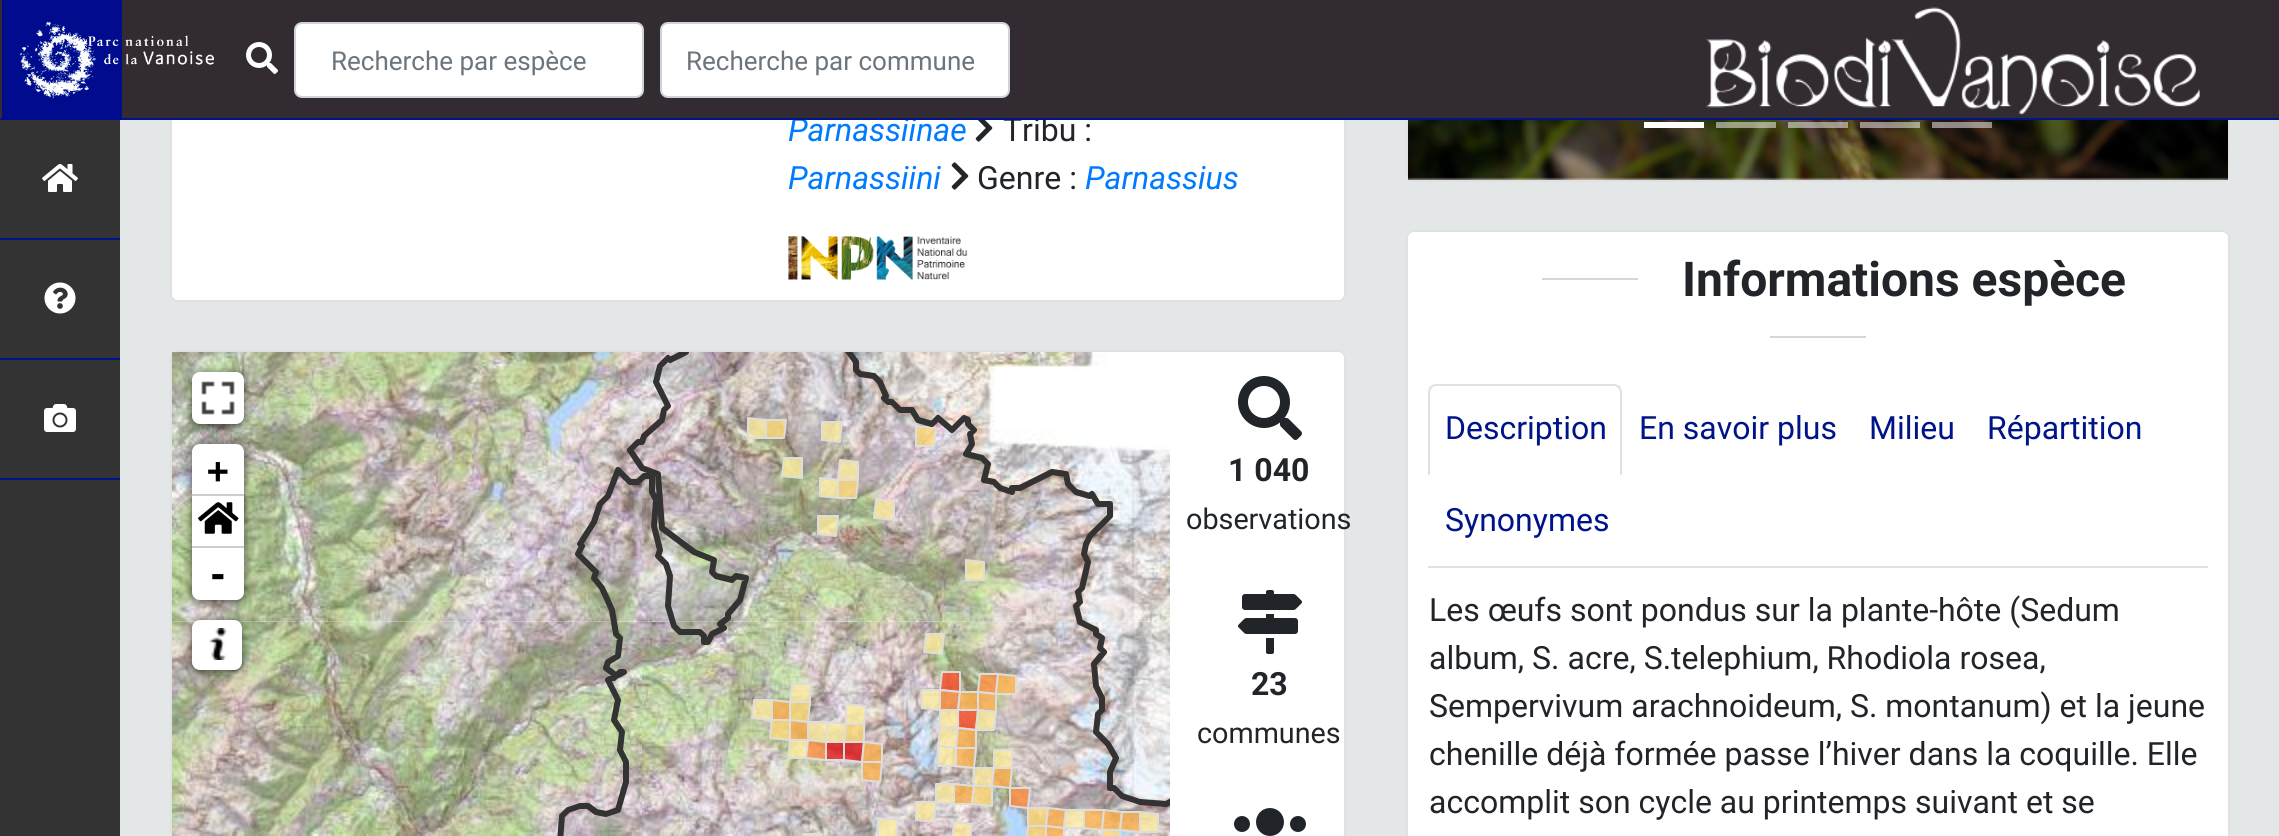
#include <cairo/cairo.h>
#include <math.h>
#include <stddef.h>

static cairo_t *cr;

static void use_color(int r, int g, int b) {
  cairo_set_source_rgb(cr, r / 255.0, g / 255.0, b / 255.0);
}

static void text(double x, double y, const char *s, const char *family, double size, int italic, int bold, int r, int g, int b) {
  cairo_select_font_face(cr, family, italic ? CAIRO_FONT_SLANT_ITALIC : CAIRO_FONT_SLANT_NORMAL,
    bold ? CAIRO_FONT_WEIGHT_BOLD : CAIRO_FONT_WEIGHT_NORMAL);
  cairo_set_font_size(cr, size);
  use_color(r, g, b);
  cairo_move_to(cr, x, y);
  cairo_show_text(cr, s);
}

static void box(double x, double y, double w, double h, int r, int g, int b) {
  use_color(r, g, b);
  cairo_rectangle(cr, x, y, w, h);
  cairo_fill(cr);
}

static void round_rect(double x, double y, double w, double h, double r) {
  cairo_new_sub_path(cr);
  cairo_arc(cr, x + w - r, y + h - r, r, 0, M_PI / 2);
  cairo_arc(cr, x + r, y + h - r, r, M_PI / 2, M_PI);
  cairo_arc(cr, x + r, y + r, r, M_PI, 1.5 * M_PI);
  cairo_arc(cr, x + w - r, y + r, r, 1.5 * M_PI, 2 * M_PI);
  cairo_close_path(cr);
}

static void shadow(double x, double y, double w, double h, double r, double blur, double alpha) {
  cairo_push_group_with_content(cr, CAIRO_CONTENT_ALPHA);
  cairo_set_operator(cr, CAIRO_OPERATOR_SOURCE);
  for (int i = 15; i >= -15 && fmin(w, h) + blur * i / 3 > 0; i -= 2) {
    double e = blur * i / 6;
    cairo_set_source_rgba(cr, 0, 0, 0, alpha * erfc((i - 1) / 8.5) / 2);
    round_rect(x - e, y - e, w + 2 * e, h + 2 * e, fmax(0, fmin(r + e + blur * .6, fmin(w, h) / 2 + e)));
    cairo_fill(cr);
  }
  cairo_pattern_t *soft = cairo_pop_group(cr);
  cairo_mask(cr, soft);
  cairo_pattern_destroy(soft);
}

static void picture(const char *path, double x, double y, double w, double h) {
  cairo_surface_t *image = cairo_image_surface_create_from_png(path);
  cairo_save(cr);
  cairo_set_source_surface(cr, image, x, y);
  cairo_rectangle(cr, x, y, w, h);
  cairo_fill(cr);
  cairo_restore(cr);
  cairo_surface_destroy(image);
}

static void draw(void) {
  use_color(227, 231, 232);
  cairo_paint(cr);
  box(0, 120, 120, 716, 51, 51, 51);
  box(0, 238, 120, 2, 0, 20, 137);
  picture("img_04.png", 42, 164, 36, 28);
  box(0, 358, 120, 2, 0, 20, 137);
  picture("img_05.png", 44, 282, 32, 32);
  box(0, 478, 120, 2, 0, 20, 137);
  picture("img_06.png", 44, 404, 32, 28);
  use_color(255, 255, 255);
  round_rect(170, -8, 1176, 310, 8);
  cairo_fill(cr);
  round_rect(171, -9, 1174, 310, 7);
  cairo_set_source_rgba(cr, 0, 0, 0, 0.12);
  cairo_stroke(cr);
  picture("img_07.png", 975, 120, 18, 22);
  picture("img_08.png", 951, 162, 18, 28);
  picture("img_09.png", 788, 236, 180, 44);
  use_color(255, 255, 255);
  round_rect(170, 350, 1176, 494, 8);
  cairo_fill(cr);
  round_rect(171, 351, 1174, 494, 7);
  cairo_set_source_rgba(cr, 0, 0, 0, 0.12);
  cairo_stroke(cr);
  picture("img_13.png", 172, 622, 470, 214);
  picture("img_10.png", 172, 352, 470, 271);
  picture("img_14.png", 642, 622, 512, 214);
  picture("img_11.png", 642, 352, 512, 271);
  picture("img_15.png", 1154, 622, 16, 214);
  picture("img_12.png", 1154, 352, 16, 271);
  picture("img_16.png", 557, 352, 613, 484);
  use_color(0, 0, 0);
  shadow(192, 374, 52, 52, 8, 5, 0.65);
  use_color(255, 255, 255);
  round_rect(192, 372, 52, 52, 8);
  cairo_fill(cr);
  picture("img_17.png", 201, 381, 34, 34);
  use_color(0, 0, 0);
  shadow(192, 446, 52, 156, 8, 5, 0.65);
  use_color(255, 255, 255);
  cairo_new_path(cr);
  cairo_move_to(cr, 200, 444);
  cairo_line_to(cr, 236, 444);
  cairo_curve_to(cr, 240.5, 444, 244, 447.5, 244, 452);
  cairo_line_to(cr, 244, 496);
  cairo_line_to(cr, 192, 496);
  cairo_line_to(cr, 192, 452);
  cairo_curve_to(cr, 192, 447.5, 195.5, 444, 200, 444);
  cairo_close_path(cr);
  cairo_fill(cr);
  box(192, 494, 52, 2, 204, 204, 204);
  box(192, 496, 52, 50, 255, 255, 255);
  box(192, 546, 52, 2, 204, 204, 204);
  picture("img_18.png", 198, 502, 41, 32);
  use_color(255, 255, 255);
  cairo_new_path(cr);
  cairo_move_to(cr, 192, 548);
  cairo_line_to(cr, 244, 548);
  cairo_line_to(cr, 244, 592);
  cairo_curve_to(cr, 244, 596.5, 240.5, 600, 236, 600);
  cairo_line_to(cr, 200, 600);
  cairo_curve_to(cr, 195.5, 600, 192, 596.5, 192, 592);
  cairo_close_path(cr);
  cairo_fill(cr);
  use_color(0, 0, 0);
  shadow(192, 622, 50, 50, 8, 5, 0.65);
  use_color(255, 255, 255);
  round_rect(193, 621, 48, 48, 7);
  cairo_fill_preserve(cr);
  cairo_stroke(cr);
  picture("img_19.png", 209, 628, 18, 32);
  picture("img_20.png", 1238, 376, 64, 64);
  picture("img_21.png", 1238, 590, 64, 64);
  picture("img_22.png", 1234, 808, 72, 28);
  round_rect(1406, -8, 824, 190, 8);
  cairo_fill(cr);
  round_rect(1407, -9, 822, 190, 7);
  cairo_set_source_rgba(cr, 0, 0, 0, 0.12);
  cairo_stroke(cr);
  picture("img_23.png", 1408, 120, 820, 60);
  box(1644, 122, 60, 6, 255, 255, 255);
  cairo_set_source_rgba(cr, 1, 1, 1, 0.5);
  cairo_rectangle(cr, 1716, 122, 60, 6);
  cairo_fill(cr);
  cairo_rectangle(cr, 1788, 122, 60, 6);
  cairo_fill(cr);
  cairo_rectangle(cr, 1860, 122, 60, 6);
  cairo_fill(cr);
  cairo_rectangle(cr, 1932, 122, 60, 6);
  cairo_fill(cr);
  use_color(255, 255, 255);
  round_rect(1406, 230, 824, 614, 8);
  cairo_fill(cr);
  round_rect(1407, 231, 822, 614, 7);
  cairo_set_source_rgba(cr, 0, 0, 0, 0.12);
  cairo_stroke(cr);
  box(1542, 278, 96, 2, 215, 215, 215);
  box(1770, 336, 96, 2, 215, 215, 215);
  box(1428, 566, 780, 2, 222, 226, 230);
  cairo_new_path(cr);
  cairo_move_to(cr, 1436, 384);
  cairo_curve_to(cr, 1434, 384, 1432, 385, 1430, 386);
  cairo_line_to(cr, 1432, 388);
  cairo_curve_to(cr, 1433, 387, 1434, 386, 1436, 386);
  cairo_line_to(cr, 1614, 386);
  cairo_curve_to(cr, 1616, 386, 1617, 387, 1618, 388);
  cairo_line_to(cr, 1620, 386);
  cairo_curve_to(cr, 1618, 385, 1616, 384, 1614, 384);
  cairo_close_path(cr);
  cairo_fill(cr);
  cairo_new_path(cr);
  cairo_move_to(cr, 1622, 476);
  cairo_line_to(cr, 1622, 392);
  cairo_curve_to(cr, 1622, 390, 1621, 388, 1620, 386);
  cairo_line_to(cr, 1618, 388);
  cairo_line_to(cr, 1620, 391);
  cairo_line_to(cr, 1620, 474);
  cairo_close_path(cr);
  cairo_fill(cr);
  use_color(255, 255, 255);
  cairo_new_path(cr);
  cairo_move_to(cr, 1622, 476);
  cairo_line_to(cr, 1620, 474);
  cairo_line_to(cr, 1430, 474);
  cairo_line_to(cr, 1428, 476);
  cairo_close_path(cr);
  cairo_fill(cr);
  use_color(222, 226, 230);
  cairo_new_path(cr);
  cairo_move_to(cr, 1428, 476);
  cairo_line_to(cr, 1430, 474);
  cairo_line_to(cr, 1430, 391);
  cairo_line_to(cr, 1432, 388);
  cairo_line_to(cr, 1430, 386);
  cairo_curve_to(cr, 1429, 388, 1428, 390, 1428, 392);
  cairo_close_path(cr);
  cairo_fill(cr);
  text(788, 141, "Parnassiinae", "Roboto", 32, 1, 0, 0, 123, 255);
  text(1003, 141, "Tribu :", "Roboto", 32, 0, 0, 33, 37, 41);
  box(0, 0, 2279, 118, 50, 43, 49);
  picture("img_02.png", 246, 42, 32, 32);
  picture("img_03.png", 1705, 7, 495, 108);
  use_color(255, 255, 255);
  round_rect(661, 23, 348, 74, 7);
  cairo_fill_preserve(cr);
  use_color(206, 212, 218);
  cairo_stroke(cr);
  text(686, 70, "Recherche par commune", "Roboto", 26, 0, 0, 108, 117, 125);
  use_color(255, 255, 255);
  round_rect(295, 23, 348, 74, 7);
  cairo_fill_preserve(cr);
  use_color(206, 212, 218);
  cairo_stroke(cr);
  text(331, 70, "Recherche par espèce", "Roboto", 26, 0, 0, 108, 117, 125);
  box(0, 118, 2279, 2, 0, 20, 137);
  picture("img_01.png", 2, 0, 212, 120);
  text(788, 189, "Parnassiini", "Roboto", 32, 1, 0, 0, 123, 255);
  text(977, 189, "Genre :", "Roboto", 32, 0, 0, 33, 37, 41);
  text(1085, 189, "Parnassius", "Roboto", 32, 1, 0, 0, 123, 255);
  text(207, 483, "+", "DejaVu Sans Mono", 36, 0, 1, 0, 0, 0);
  text(207, 587, "-", "DejaVu Sans Mono", 36, 0, 1, 0, 0, 0);
  text(1228, 481, "1 040", "Roboto", 32, 0, 1, 33, 37, 41);
  text(1186, 529, "observations", "Roboto", 28.75, 0, 0, 33, 37, 41);
  text(1251, 695, "23", "Roboto", 32, 0, 1, 33, 37, 41);
  text(1197, 743, "communes", "Roboto", 28.75, 0, 0, 33, 37, 41);
  text(1682, 296, "Informations espèce", "Roboto", 48, 0, 1, 33, 37, 41);
  text(1445, 439, "Description", "Roboto", 32, 0, 0, 0, 20, 137);
  text(1639, 439, "En savoir plus", "Roboto", 32, 0, 0, 0, 20, 137);
  text(1869, 439, "Milieu", "Roboto", 32, 0, 0, 0, 20, 137);
  text(1987, 439, "Répartition", "Roboto", 32, 0, 0, 0, 20, 137);
  text(1445, 531, "Synonymes", "Roboto", 32, 0, 0, 0, 20, 137);
  text(1429, 621, "Les œufs sont pondus sur la plante-hôte (Sedum", "Roboto", 32, 0, 0, 33, 37, 41);
  text(1429, 669, "album, S. acre, S.telephium, Rhodiola rosea,", "Roboto", 32, 0, 0, 33, 37, 41);
  text(1429, 717, "Sempervivum arachnoideum, S. montanum) et la jeune", "Roboto", 32, 0, 0, 33, 37, 41);
  text(1429, 765, "chenille déjà formée passe l’hiver dans la coquille. Elle", "Roboto", 32, 0, 0, 33, 37, 41);
  text(1429, 813, "accomplit son cycle au printemps suivant et se", "Roboto", 32, 0, 0, 33, 37, 41);
}

int main(void) {
  cairo_surface_t *surface = cairo_image_surface_create(CAIRO_FORMAT_RGB24, 2279, 836);
  cr = cairo_create(surface);
  cairo_font_options_t *options = cairo_font_options_create();
  cairo_font_options_set_hint_metrics(options, CAIRO_HINT_METRICS_OFF);
  cairo_font_options_set_hint_style(options, CAIRO_HINT_STYLE_NONE);
  cairo_set_font_options(cr, options);
  cairo_set_miter_limit(cr, 4);
  draw();
  cairo_surface_write_to_png(surface, "out.png");
  cairo_font_options_destroy(options);
  cairo_destroy(cr);
  cairo_surface_destroy(surface);
  return 0;
}
